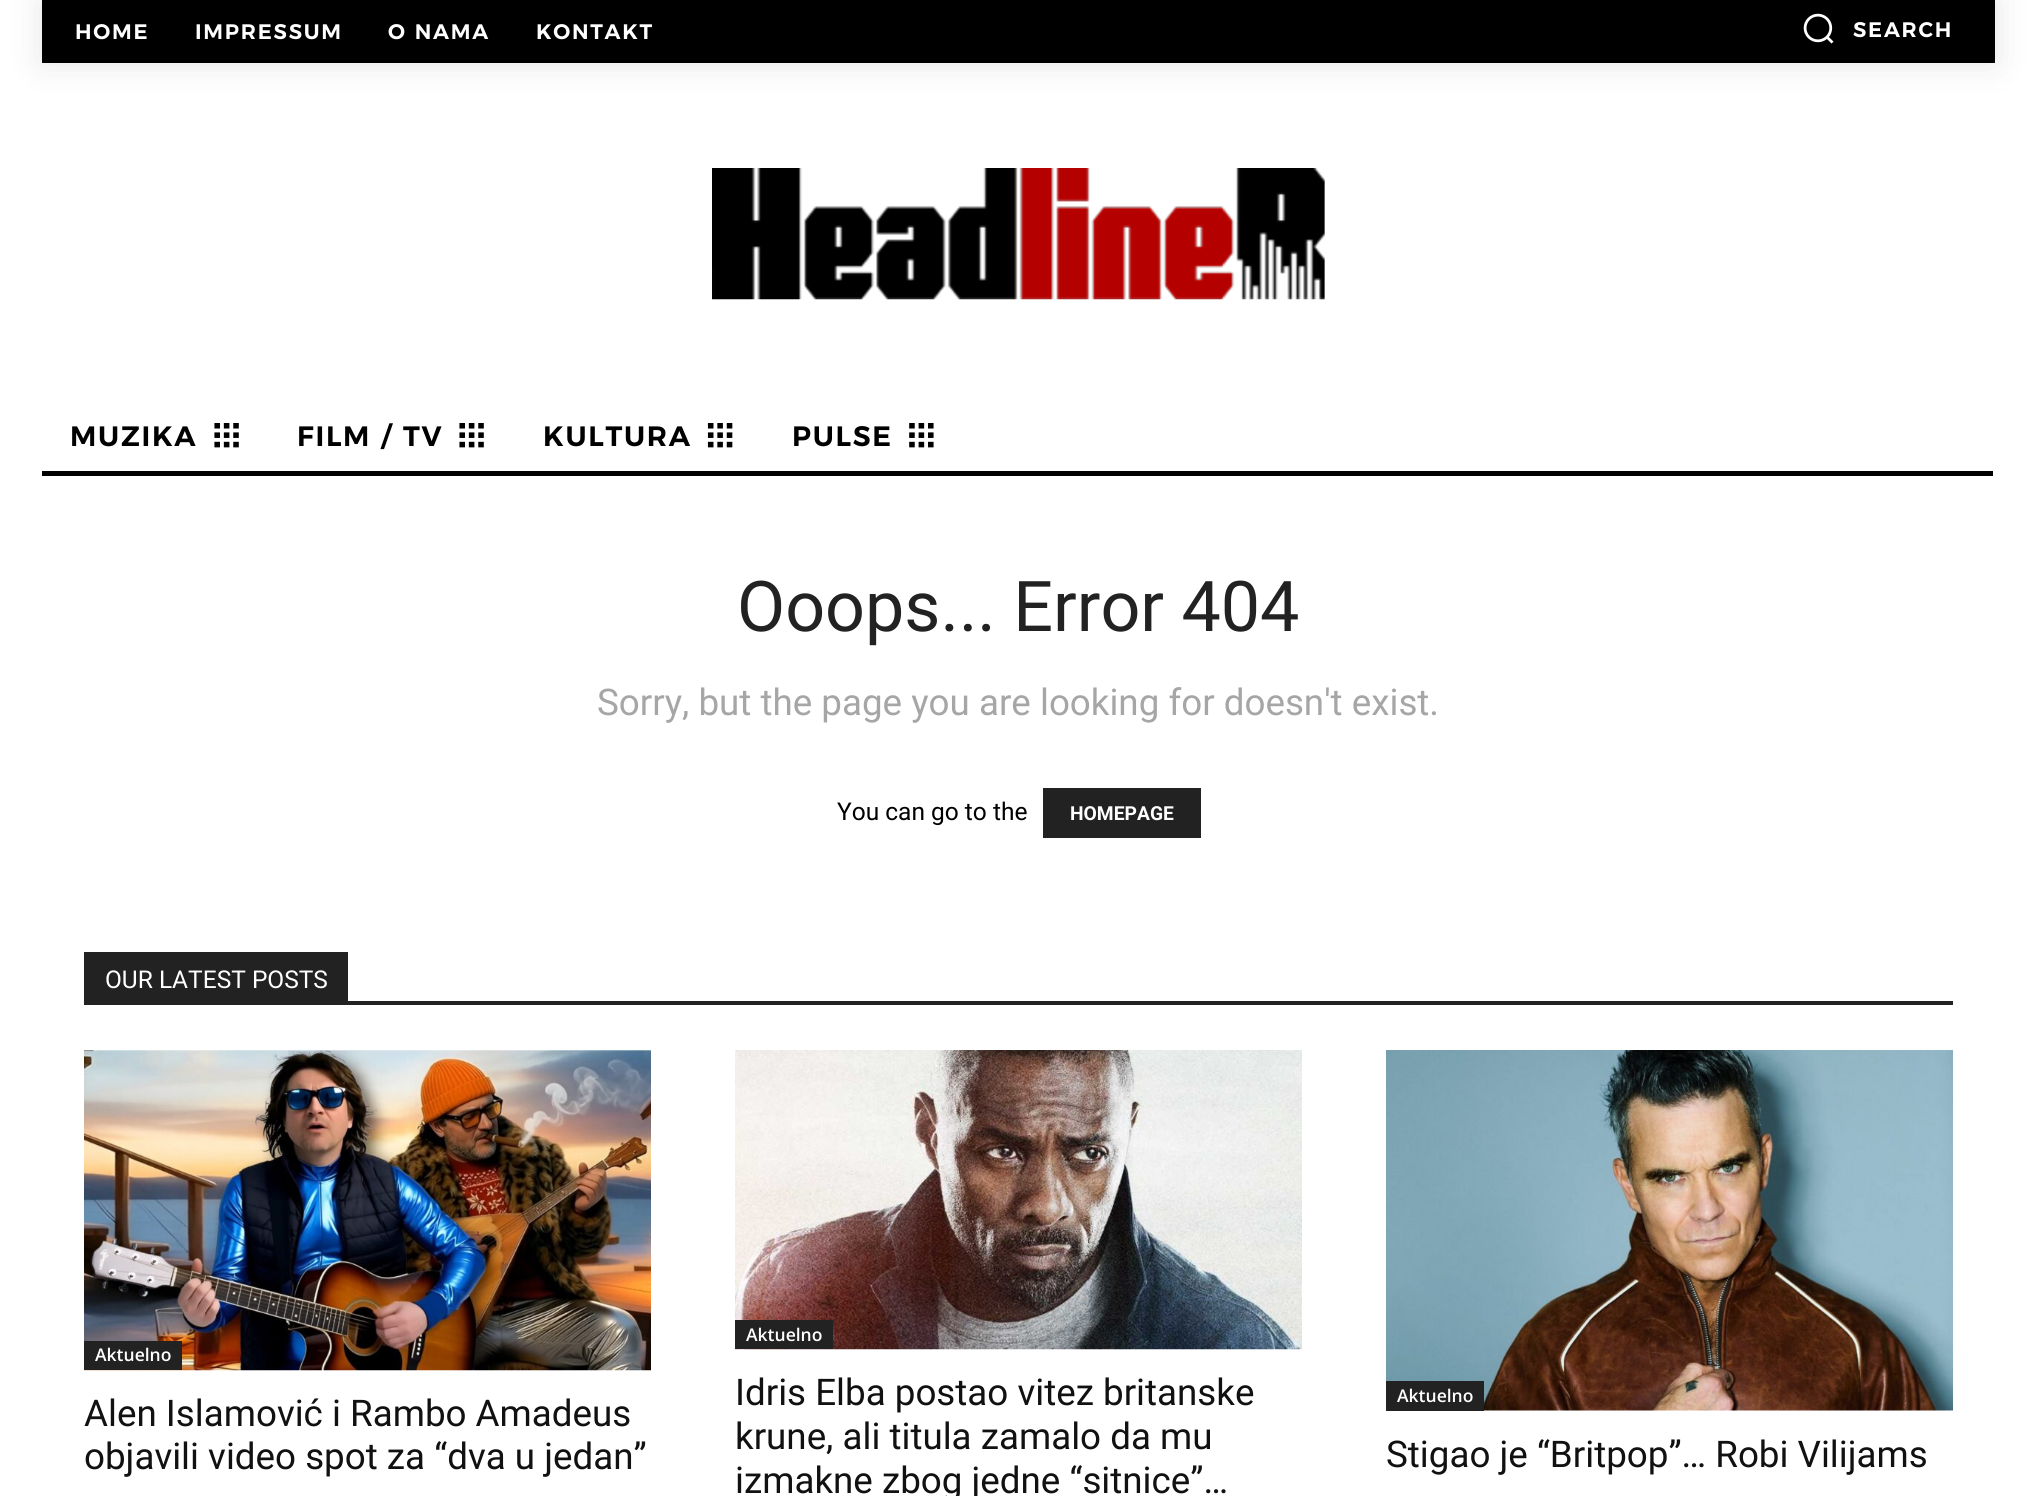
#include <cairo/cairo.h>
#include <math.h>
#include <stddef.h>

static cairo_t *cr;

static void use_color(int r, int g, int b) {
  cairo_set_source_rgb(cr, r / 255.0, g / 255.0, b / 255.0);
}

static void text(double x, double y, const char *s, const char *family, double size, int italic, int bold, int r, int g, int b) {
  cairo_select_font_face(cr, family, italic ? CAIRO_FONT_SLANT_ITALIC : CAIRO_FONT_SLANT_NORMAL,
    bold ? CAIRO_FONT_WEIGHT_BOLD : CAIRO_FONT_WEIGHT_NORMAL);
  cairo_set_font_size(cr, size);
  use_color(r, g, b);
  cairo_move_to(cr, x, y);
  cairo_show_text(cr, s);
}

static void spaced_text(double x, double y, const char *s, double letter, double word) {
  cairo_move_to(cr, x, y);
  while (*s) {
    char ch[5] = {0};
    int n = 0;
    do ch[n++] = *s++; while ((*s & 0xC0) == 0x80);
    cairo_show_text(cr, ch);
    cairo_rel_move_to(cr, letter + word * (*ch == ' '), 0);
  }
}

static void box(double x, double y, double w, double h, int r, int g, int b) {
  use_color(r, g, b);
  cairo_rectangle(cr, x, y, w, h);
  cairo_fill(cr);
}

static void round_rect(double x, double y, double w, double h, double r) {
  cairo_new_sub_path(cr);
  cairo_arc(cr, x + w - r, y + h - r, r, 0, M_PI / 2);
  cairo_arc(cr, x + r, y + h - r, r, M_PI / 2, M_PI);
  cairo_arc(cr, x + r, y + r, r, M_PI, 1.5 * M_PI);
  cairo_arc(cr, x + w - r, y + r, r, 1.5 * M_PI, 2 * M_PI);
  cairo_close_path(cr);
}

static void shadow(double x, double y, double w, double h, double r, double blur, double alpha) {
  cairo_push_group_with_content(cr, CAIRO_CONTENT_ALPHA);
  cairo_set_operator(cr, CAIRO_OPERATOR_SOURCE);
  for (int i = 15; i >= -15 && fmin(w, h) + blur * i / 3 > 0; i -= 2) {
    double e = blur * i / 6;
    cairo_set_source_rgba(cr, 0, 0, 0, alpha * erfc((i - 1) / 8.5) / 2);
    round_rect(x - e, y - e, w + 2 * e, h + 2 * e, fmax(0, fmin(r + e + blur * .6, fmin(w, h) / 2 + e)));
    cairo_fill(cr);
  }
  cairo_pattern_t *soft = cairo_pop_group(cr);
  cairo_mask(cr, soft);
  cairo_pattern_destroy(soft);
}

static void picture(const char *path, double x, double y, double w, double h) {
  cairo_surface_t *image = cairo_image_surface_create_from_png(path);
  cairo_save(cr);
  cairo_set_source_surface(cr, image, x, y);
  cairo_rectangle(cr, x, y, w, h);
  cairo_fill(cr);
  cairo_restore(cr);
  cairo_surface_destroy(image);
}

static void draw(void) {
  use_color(255, 255, 255);
  cairo_paint(cr);
  use_color(0, 0, 0);
  shadow(42, 0, 1953, 63, 0, 17.5, 0.1);
  box(42, 0, 1953, 63, 0, 0, 0);
  picture("img_01.png", 1803, 13, 31, 31);
  picture("img_02.png", 712, 168, 613, 132);
  picture("img_03.png", 214, 423, 25, 25);
  picture("img_03.png", 459, 423, 25, 25);
  picture("img_04.png", 707, 423, 26, 25);
  picture("img_05.png", 909, 423, 25, 25);
  box(42, 471, 1951, 5, 0, 0, 0);
  box(1043, 788, 158, 50, 34, 34, 34);
  box(84, 1001, 1869, 4, 34, 34, 34);
  box(84, 952, 264, 49, 34, 34, 34);
  picture("img_06.png", 84, 1050, 567, 321);
  box(84, 1341, 98, 29, 34, 34, 34);
  picture("img_07.png", 735, 1050, 567, 300);
  box(735, 1320, 98, 29, 34, 34, 34);
  picture("img_08.png", 1386, 1050, 567, 361);
  box(1386, 1381, 98, 30, 34, 34, 34);
  cairo_select_font_face(cr, "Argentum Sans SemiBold", CAIRO_FONT_SLANT_NORMAL, CAIRO_FONT_WEIGHT_NORMAL);
  cairo_set_font_size(cr, 21);
  use_color(255, 255, 255);
  spaced_text(75, 39, "HOME", 1.75, 0);
  spaced_text(195, 39, "IMPRESSUM", 1.75, 0);
  spaced_text(388, 39, "O NAMA", 1.75, 0);
  spaced_text(536, 39, "KONTAKT", 1.75, 0);
  spaced_text(1853, 37, "SEARCH", 1.75, 0);
  cairo_set_font_size(cr, 28);
  use_color(0, 0, 0);
  spaced_text(70, 446, "MUZIKA", 1.75, 0);
  spaced_text(297, 446, "FILM / TV", 1.75, 0);
  spaced_text(543, 446, "KULTURA", 1.75, 0);
  spaced_text(792, 446, "PULSE", 1.75, 0);
  text(737, 631, "Ooops... Error 404", "Roboto", 70, 0, 0, 34, 34, 34);
  text(597, 715, "Sorry, but the page you are looking for doesn't exist.", "Roboto", 36.75, 0, 0, 166, 166, 166);
  text(837, 820, "You can go to the", "Roboto", 24.5, 0, 0, 0, 0, 0);
  text(1070, 820, "HOMEPAGE", "Roboto", 19.25, 0, 1, 255, 255, 255);
  text(105, 988, "OUR LATEST POSTS", "Roboto", 24.5, 0, 0, 255, 255, 255);
  text(95, 1361, "Aktuelno", "Open Sans SemiBold", 17.5, 0, 0, 255, 255, 255);
  text(84, 1426, "Alen Islamović i Rambo Amadeus", "Roboto", 36.75, 0, 0, 17, 17, 17);
  text(84, 1469, "objavili video spot za “dva u jedan”", "Roboto", 36.75, 0, 0, 17, 17, 17);
  text(746, 1341, "Aktuelno", "Open Sans SemiBold", 17.5, 0, 0, 255, 255, 255);
  text(735, 1405, "Idris Elba postao vitez britanske", "Roboto", 36.75, 0, 0, 17, 17, 17);
  text(735, 1449, "krune, ali titula zamalo da mu", "Roboto", 36.75, 0, 0, 17, 17, 17);
  text(735, 1493, "izmakne zbog jedne “sitnice”…", "Roboto", 36.75, 0, 0, 17, 17, 17);
  text(1397, 1402, "Aktuelno", "Open Sans SemiBold", 17.5, 0, 0, 255, 255, 255);
  text(1386, 1467, "Stigao je “Britpop”… Robi Vilijams", "Roboto", 36.75, 0, 0, 17, 17, 17);
}

int main(void) {
  cairo_surface_t *surface = cairo_image_surface_create(CAIRO_FORMAT_RGB24, 2036, 1496);
  cr = cairo_create(surface);
  cairo_font_options_t *options = cairo_font_options_create();
  cairo_font_options_set_hint_metrics(options, CAIRO_HINT_METRICS_OFF);
  cairo_font_options_set_hint_style(options, CAIRO_HINT_STYLE_NONE);
  cairo_set_font_options(cr, options);
  cairo_set_miter_limit(cr, 4);
  draw();
  cairo_surface_write_to_png(surface, "out.png");
  cairo_font_options_destroy(options);
  cairo_destroy(cr);
  cairo_surface_destroy(surface);
  return 0;
}
